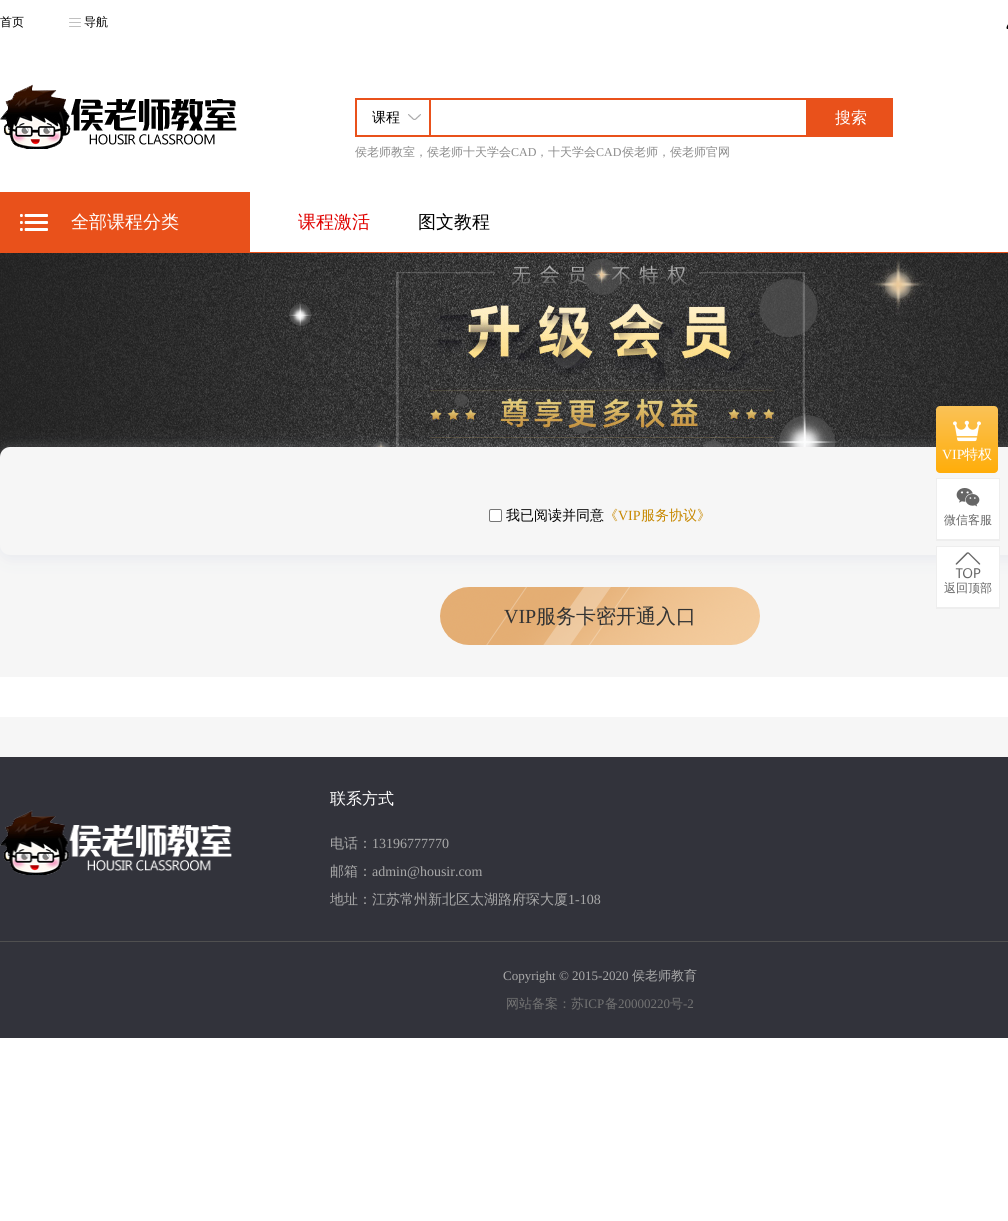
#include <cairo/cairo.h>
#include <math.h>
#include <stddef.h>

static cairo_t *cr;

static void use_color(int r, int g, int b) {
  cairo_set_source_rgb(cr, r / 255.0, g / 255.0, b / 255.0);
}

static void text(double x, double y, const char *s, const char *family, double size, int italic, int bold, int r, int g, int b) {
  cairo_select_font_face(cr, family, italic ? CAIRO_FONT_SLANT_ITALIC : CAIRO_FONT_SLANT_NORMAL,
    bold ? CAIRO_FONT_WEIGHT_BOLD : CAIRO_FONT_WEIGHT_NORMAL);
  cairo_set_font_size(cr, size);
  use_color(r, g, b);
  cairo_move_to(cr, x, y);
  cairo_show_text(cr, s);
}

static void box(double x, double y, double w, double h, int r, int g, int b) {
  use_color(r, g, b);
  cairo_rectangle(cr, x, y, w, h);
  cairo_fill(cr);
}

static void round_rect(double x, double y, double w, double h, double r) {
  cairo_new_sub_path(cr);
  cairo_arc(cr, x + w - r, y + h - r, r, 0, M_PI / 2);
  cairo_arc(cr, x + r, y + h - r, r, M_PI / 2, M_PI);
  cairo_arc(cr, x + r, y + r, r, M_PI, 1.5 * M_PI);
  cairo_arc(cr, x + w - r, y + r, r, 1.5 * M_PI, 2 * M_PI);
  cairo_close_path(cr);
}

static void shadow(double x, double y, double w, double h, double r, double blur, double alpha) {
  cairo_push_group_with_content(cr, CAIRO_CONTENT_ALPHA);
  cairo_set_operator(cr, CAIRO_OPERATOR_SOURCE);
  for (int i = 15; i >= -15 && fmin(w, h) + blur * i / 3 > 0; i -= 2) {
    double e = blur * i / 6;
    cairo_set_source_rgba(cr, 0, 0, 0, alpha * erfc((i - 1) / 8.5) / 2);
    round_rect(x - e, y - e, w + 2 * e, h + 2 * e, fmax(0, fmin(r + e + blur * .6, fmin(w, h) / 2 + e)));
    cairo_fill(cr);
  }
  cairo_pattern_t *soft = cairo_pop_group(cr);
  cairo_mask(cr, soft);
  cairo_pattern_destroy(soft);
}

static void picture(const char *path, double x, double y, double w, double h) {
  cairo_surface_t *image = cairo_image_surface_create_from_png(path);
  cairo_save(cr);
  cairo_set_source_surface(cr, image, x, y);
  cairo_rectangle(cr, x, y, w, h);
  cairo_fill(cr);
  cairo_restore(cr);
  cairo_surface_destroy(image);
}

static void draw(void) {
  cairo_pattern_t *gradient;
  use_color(255, 255, 255);
  cairo_paint(cr);
  picture("img_01.png", 69, 18, 12, 9);
  picture("img_02.png", 1006, 24, 2, 5);
  picture("img_03.png", 0, 84, 237, 65);
  box(431, 98, 377, 2, 233, 81, 27);
  box(806, 98, 87, 39, 233, 81, 27);
  box(431, 135, 377, 2, 233, 81, 27);
  picture("img_04.png", 408, 114, 13, 6);
  cairo_rectangle(cr, 356, 99, 74, 37);
  cairo_stroke(cr);
  box(0, 252, 1008, 1, 233, 81, 27);
  box(0, 192, 250, 60, 233, 81, 27);
  picture("img_05.png", 20, 214, 28, 17);
  box(0, 545, 1008, 212, 246, 246, 246);
  picture("img_06.png", 0, 253, 1008, 204);
  use_color(211, 217, 228);
  shadow(0, 451, 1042, 108, 10, 8, 0.4);
  use_color(246, 246, 246);
  round_rect(0, 447, 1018, 108, 10);
  cairo_fill(cr);
  use_color(255, 255, 255);
  round_rect(489.5, 509.5, 12, 12, 1.5);
  cairo_fill_preserve(cr);
  use_color(118, 118, 118);
  cairo_set_line_width(cr, 1);
  cairo_stroke(cr);
  picture("img_07.png", 440, 587, 320, 58);
  box(0, 677, 1008, 40, 255, 255, 255);
  gradient = cairo_pattern_create_linear(967, 406, 967, 473);
  cairo_pattern_add_color_stop_rgba(gradient, 0, 0.98, 0.761, 0.341, 1);
  cairo_pattern_add_color_stop_rgba(gradient, 1, 1, 0.678, 0.035, 1);
  cairo_set_source(cr, gradient);
  cairo_pattern_destroy(gradient);
  round_rect(936, 406, 62, 67, 4);
  cairo_fill(cr);
  picture("img_08.png", 953, 420, 28, 22);
  box(937, 479, 62, 60, 255, 255, 255);
  cairo_rectangle(cr, 936.5, 478.5, 63, 62);
  use_color(238, 238, 238);
  cairo_stroke(cr);
  box(937, 539, 62, 1, 238, 238, 238);
  picture("img_09.png", 956, 488, 24, 19);
  box(937, 547, 62, 60, 255, 255, 255);
  cairo_rectangle(cr, 936.5, 546.5, 63, 62);
  use_color(238, 238, 238);
  cairo_stroke(cr);
  box(937, 607, 62, 1, 238, 238, 238);
  picture("img_10.png", 955, 552, 26, 27);
  box(0, 757, 1008, 184, 50, 51, 59);
  picture("img_11.png", 0, 810, 232, 65);
  box(0, 941, 1008, 1, 80, 80, 80);
  box(0, 942, 1008, 96, 50, 51, 59);
  text(0, 26, "首页", "WenQuanYi Zen Hei Medium", 12, 0, 0, 0, 0, 0);
  text(84, 26, "导航", "WenQuanYi Zen Hei Medium", 12, 0, 0, 0, 0, 0);
  text(372, 122, "课程", "WenQuanYi Zen Hei Medium", 14, 0, 0, 0, 0, 0);
  text(835, 123, "搜索", "WenQuanYi Zen Hei Medium", 16, 0, 0, 255, 255, 255);
  text(355, 156, "侯老师教室，侯老师十天学会", "WenQuanYi Zen Hei Medium", 12, 0, 0, 139, 139, 139);
  text(511, 156, "CAD", "Liberation Serif", 12, 0, 0, 139, 139, 139);
  text(536, 156, "，十天学会", "WenQuanYi Zen Hei Medium", 12, 0, 0, 139, 139, 139);
  text(596, 156, "CAD", "Liberation Serif", 12, 0, 0, 139, 139, 139);
  text(622, 156, "侯老师，侯老师官网", "WenQuanYi Zen Hei Medium", 12, 0, 0, 139, 139, 139);
  text(71, 228, "全部课程分类", "WenQuanYi Zen Hei Medium", 18, 0, 0, 255, 255, 255);
  text(298, 228, "课程激活", "WenQuanYi Zen Hei Medium", 18, 0, 0, 224, 2, 0);
  text(418, 228, "图文教程", "WenQuanYi Zen Hei Medium", 18, 0, 0, 0, 0, 0);
  text(506, 520, "我已阅读并同意", "WenQuanYi Zen Hei Medium", 14, 0, 0, 0, 0, 0);
  text(604, 520, "《", "WenQuanYi Zen Hei Medium", 14, 0, 0, 199, 136, 0);
  text(618, 520, "VIP", "Liberation Serif", 14, 0, 0, 199, 136, 0);
  text(641, 520, "服务协议》", "WenQuanYi Zen Hei Medium", 14, 0, 0, 199, 136, 0);
  text(504, 623, "VIP", "Liberation Serif", 20, 0, 0, 51, 51, 51);
  text(536, 623, "服务卡密开通入口", "WenQuanYi Zen Hei Medium", 20, 0, 0, 51, 51, 51);
  text(942, 459, "VIP", "Liberation Serif", 14, 0, 0, 255, 255, 255);
  text(964, 459, "特权", "WenQuanYi Zen Hei Medium", 14, 0, 0, 255, 255, 255);
  text(944, 524, "微信客服", "WenQuanYi Zen Hei Medium", 12, 0, 0, 102, 102, 102);
  text(944, 592, "返回顶部", "WenQuanYi Zen Hei Medium", 12, 0, 0, 102, 102, 102);
  text(330, 804, "联系方式", "WenQuanYi Zen Hei Medium", 16, 0, 0, 255, 255, 255);
  text(330, 848, "电话：", "WenQuanYi Zen Hei Medium", 14, 0, 0, 169, 169, 169);
  text(372, 848, "13196777770", "Liberation Serif", 14, 0, 0, 169, 169, 169);
  text(330, 876, "邮箱：", "WenQuanYi Zen Hei Medium", 14, 0, 0, 169, 169, 169);
  text(372, 876, "admin@housir.com", "Liberation Serif", 14, 0, 0, 169, 169, 169);
  text(330, 904, "地址：江苏常州新北区太湖路府琛大厦", "WenQuanYi Zen Hei Medium", 14, 0, 0, 169, 169, 169);
  text(568, 904, "1-108", "Liberation Serif", 14, 0, 0, 169, 169, 169);
  text(503, 980, "Copyright © 2015-2020", "Liberation Serif", 13, 0, 0, 169, 169, 169);
  text(632, 980, "侯老师教育", "WenQuanYi Zen Hei Medium", 13, 0, 0, 169, 169, 169);
  text(506, 1008, "网站备案：苏", "WenQuanYi Zen Hei Medium", 13, 0, 0, 115, 115, 115);
  text(584, 1008, "ICP", "Liberation Serif", 13, 0, 0, 115, 115, 115);
  text(605, 1008, "备", "WenQuanYi Zen Hei Medium", 13, 0, 0, 115, 115, 115);
  text(618, 1008, "20000220", "Liberation Serif", 13, 0, 0, 115, 115, 115);
  text(670, 1008, "号", "WenQuanYi Zen Hei Medium", 13, 0, 0, 115, 115, 115);
  text(683, 1008, "-2", "Liberation Serif", 13, 0, 0, 115, 115, 115);
}

int main(void) {
  cairo_surface_t *surface = cairo_image_surface_create(CAIRO_FORMAT_RGB24, 1008, 1221);
  cr = cairo_create(surface);
  cairo_font_options_t *options = cairo_font_options_create();
  cairo_font_options_set_hint_metrics(options, CAIRO_HINT_METRICS_OFF);
  cairo_font_options_set_hint_style(options, CAIRO_HINT_STYLE_NONE);
  cairo_set_font_options(cr, options);
  cairo_set_miter_limit(cr, 4);
  draw();
  cairo_surface_write_to_png(surface, "out.png");
  cairo_font_options_destroy(options);
  cairo_destroy(cr);
  cairo_surface_destroy(surface);
  return 0;
}
